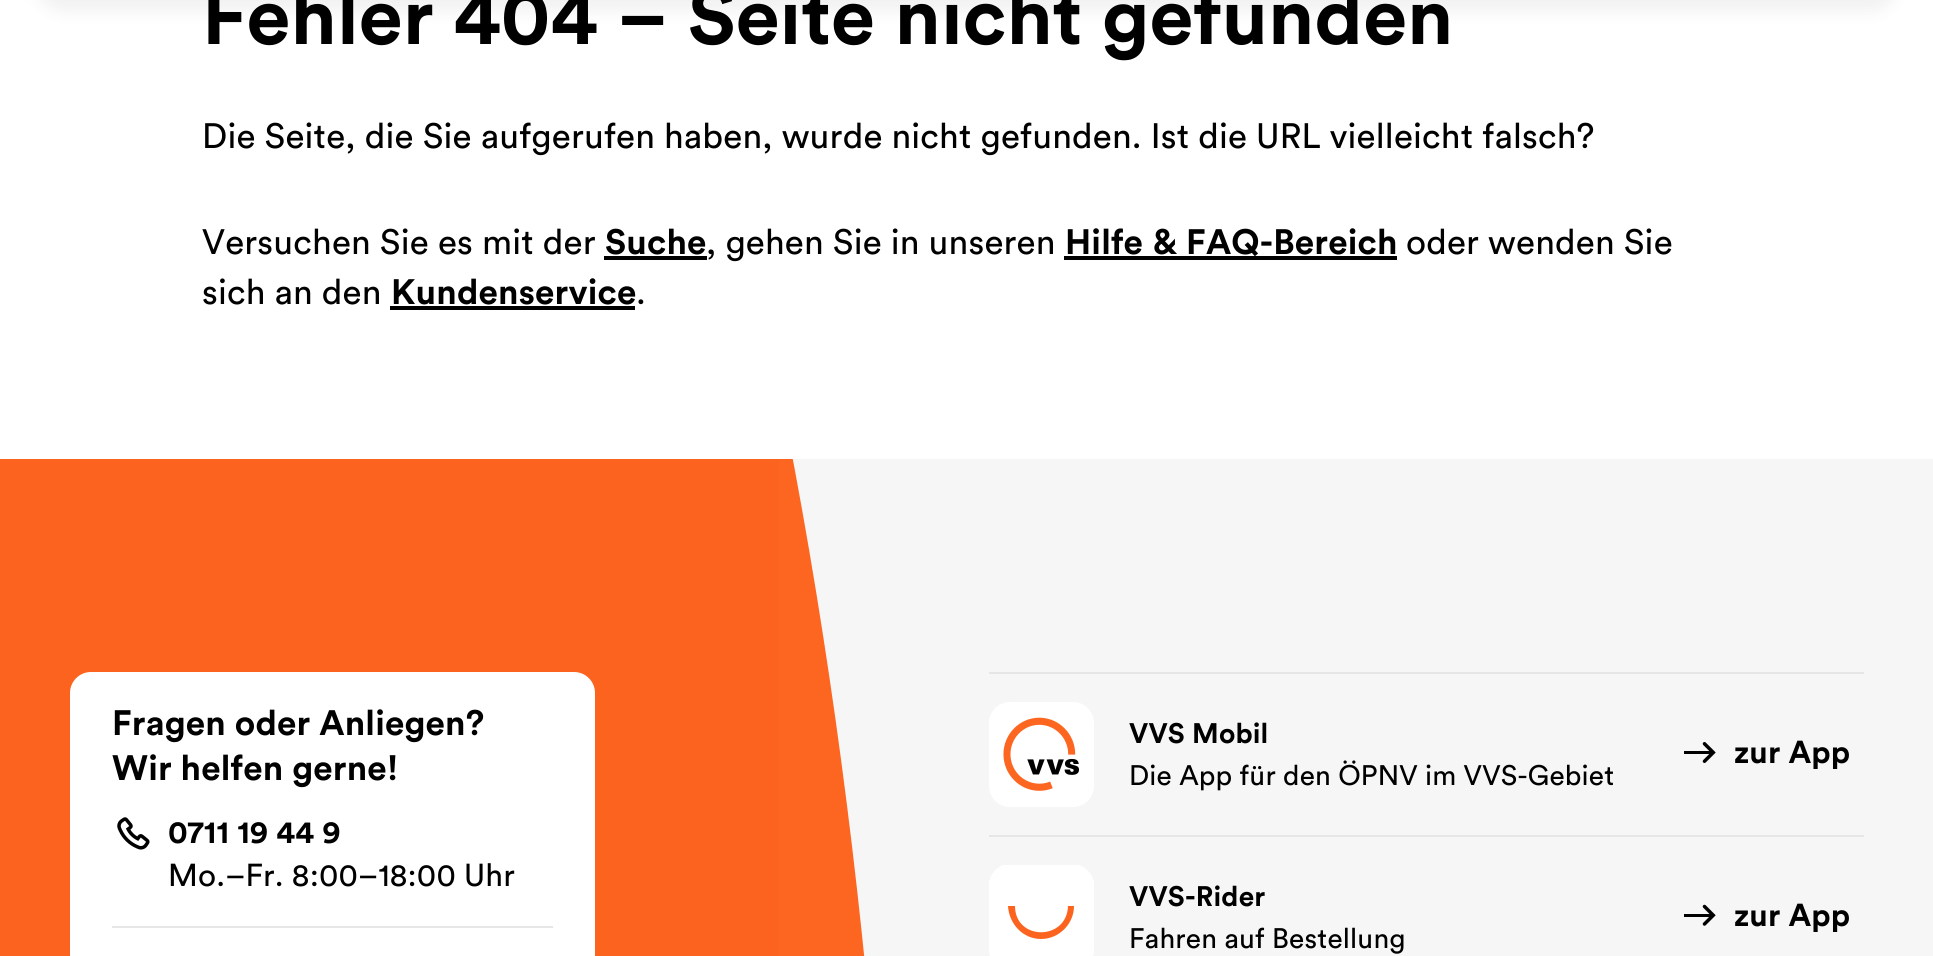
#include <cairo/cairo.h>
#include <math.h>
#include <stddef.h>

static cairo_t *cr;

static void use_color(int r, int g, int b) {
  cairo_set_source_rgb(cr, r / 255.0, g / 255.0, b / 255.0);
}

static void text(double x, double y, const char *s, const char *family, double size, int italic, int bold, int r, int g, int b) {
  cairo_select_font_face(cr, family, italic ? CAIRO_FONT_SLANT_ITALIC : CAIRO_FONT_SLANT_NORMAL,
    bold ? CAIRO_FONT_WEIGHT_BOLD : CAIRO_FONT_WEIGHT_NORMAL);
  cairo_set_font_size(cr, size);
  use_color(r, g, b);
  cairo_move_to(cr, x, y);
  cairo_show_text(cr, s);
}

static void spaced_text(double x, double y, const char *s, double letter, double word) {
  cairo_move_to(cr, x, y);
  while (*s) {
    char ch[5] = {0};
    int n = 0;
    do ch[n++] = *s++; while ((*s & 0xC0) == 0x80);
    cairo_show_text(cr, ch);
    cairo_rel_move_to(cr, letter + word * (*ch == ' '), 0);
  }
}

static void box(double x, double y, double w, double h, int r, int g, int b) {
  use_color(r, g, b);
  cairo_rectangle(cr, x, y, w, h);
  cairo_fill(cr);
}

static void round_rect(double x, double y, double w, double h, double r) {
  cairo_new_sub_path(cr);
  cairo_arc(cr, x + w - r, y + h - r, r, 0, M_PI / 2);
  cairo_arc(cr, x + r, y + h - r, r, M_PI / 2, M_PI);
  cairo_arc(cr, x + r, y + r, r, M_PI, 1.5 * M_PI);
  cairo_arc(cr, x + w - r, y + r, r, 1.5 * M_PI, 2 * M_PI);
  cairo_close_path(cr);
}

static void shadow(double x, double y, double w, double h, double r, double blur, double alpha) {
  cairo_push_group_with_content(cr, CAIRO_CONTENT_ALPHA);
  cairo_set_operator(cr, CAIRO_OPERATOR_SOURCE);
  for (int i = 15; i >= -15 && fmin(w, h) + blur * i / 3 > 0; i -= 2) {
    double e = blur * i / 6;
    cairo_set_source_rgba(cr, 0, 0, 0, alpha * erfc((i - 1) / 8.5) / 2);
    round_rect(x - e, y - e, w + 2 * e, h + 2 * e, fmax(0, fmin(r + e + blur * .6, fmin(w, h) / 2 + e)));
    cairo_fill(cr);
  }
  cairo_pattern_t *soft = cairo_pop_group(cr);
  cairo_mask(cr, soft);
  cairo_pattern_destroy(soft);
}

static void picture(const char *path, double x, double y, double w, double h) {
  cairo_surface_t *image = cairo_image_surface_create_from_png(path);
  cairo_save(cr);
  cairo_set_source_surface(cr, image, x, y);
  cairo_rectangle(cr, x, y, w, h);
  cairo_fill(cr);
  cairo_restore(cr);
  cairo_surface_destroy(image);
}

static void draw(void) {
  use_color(255, 255, 255);
  cairo_paint(cr);
  use_color(0, 0, 0);
  shadow(35, -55, 1864, 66, 28, 9, 0.06);
  box(604, 256, 103, 4, 0, 0, 0);
  box(1064, 256, 333, 4, 0, 0, 0);
  box(390, 306, 245, 4, 0, 0, 0);
  box(792, 459, 1141, 497, 246, 246, 246);
  box(0, 459, 779, 497, 252, 99, 30);
  use_color(255, 255, 255);
  round_rect(70, 672, 525, 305, 21);
  cairo_fill(cr);
  picture("img_01.png", 117, 817, 33, 33);
  box(112, 926, 441, 2, 230, 230, 230);
  cairo_save(cr);
  cairo_rectangle(cr, 779, 459, 121, 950);
  cairo_clip(cr);
  use_color(252, 102, 33);
  cairo_new_path(cr);
  cairo_move_to(cr, 341, -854);
  cairo_curve_to(cr, 697, -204, 899, 651, 899, 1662);
  cairo_line_to(cr, 899, 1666);
  cairo_curve_to(cr, 899, 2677, 697, 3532, 341, 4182);
  cairo_close_path(cr);
  cairo_fill(cr);
  cairo_restore(cr);
  box(989, 672, 875, 2, 230, 230, 230);
  box(989, 835, 875, 2, 230, 230, 230);
  use_color(255, 255, 255);
  round_rect(989, 702, 105, 105, 21);
  cairo_fill(cr);
  picture("img_02.png", 1003, 717, 76, 74);
  picture("img_03.png", 1684, 742, 32, 21);
  round_rect(989, 865, 105, 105, 21);
  cairo_fill(cr);
  cairo_save(cr);
  cairo_rectangle(cr, 989, 865, 105, 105);
  cairo_clip(cr);
  cairo_new_path(cr);
  cairo_move_to(cr, 1073, 864);
  cairo_line_to(cr, 1010, 864);
  cairo_curve_to(cr, 998, 864, 989, 874, 989, 886);
  cairo_line_to(cr, 989, 948);
  cairo_curve_to(cr, 989, 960, 998, 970, 1010, 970);
  cairo_line_to(cr, 1073, 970);
  cairo_curve_to(cr, 1084, 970, 1094, 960, 1094, 948);
  cairo_line_to(cr, 1094, 886);
  cairo_curve_to(cr, 1094, 874, 1084, 864, 1073, 864);
  cairo_close_path(cr);
  cairo_fill(cr);
  cairo_restore(cr);
  use_color(252, 99, 30);
  cairo_new_path(cr);
  cairo_move_to(cr, 1068, 906);
  cairo_curve_to(cr, 1067, 941, 1015, 941, 1015, 906);
  cairo_line_to(cr, 1008, 906);
  cairo_curve_to(cr, 1009, 924, 1023, 939, 1041, 939);
  cairo_curve_to(cr, 1059, 939, 1074, 924, 1074, 906);
  cairo_close_path(cr);
  cairo_fill(cr);
  picture("img_04.png", 1684, 904, 32, 22);
  text(202, 44, "Fehler 404 – Seite nicht gefunden", "Circular", 79.4, 0, 1, 0, 0, 0);
  cairo_select_font_face(cr, "Circular", CAIRO_FONT_SLANT_NORMAL, CAIRO_FONT_WEIGHT_NORMAL);
  cairo_set_font_size(cr, 35);
  spaced_text(202, 148, "Die Seite, die Sie aufgerufen haben, wurde nicht gefunden. Ist die URL vielleicht falsch?", 0.18, 0);
  spaced_text(202, 254, "Versuchen Sie es mit der", 0.18, 0);
  cairo_select_font_face(cr, "Circular", CAIRO_FONT_SLANT_NORMAL, CAIRO_FONT_WEIGHT_BOLD);
  spaced_text(605, 254, "Suche", 0.18, 0);
  cairo_select_font_face(cr, "Circular", CAIRO_FONT_SLANT_NORMAL, CAIRO_FONT_WEIGHT_NORMAL);
  spaced_text(706, 254, ", gehen Sie in unseren", 0.18, 0);
  cairo_select_font_face(cr, "Circular", CAIRO_FONT_SLANT_NORMAL, CAIRO_FONT_WEIGHT_BOLD);
  spaced_text(1065, 254, "Hilfe & FAQ-Bereich", 0.18, 0);
  cairo_select_font_face(cr, "Circular", CAIRO_FONT_SLANT_NORMAL, CAIRO_FONT_WEIGHT_NORMAL);
  spaced_text(1406, 254, "oder wenden Sie", 0.18, 0);
  spaced_text(202, 304, "sich an den", 0.18, 0);
  cairo_select_font_face(cr, "Circular", CAIRO_FONT_SLANT_NORMAL, CAIRO_FONT_WEIGHT_BOLD);
  spaced_text(391, 304, "Kundenservice", 0.18, 0);
  cairo_select_font_face(cr, "Circular", CAIRO_FONT_SLANT_NORMAL, CAIRO_FONT_WEIGHT_NORMAL);
  spaced_text(636, 304, ".", 0.18, 0);
  cairo_select_font_face(cr, "Circular", CAIRO_FONT_SLANT_NORMAL, CAIRO_FONT_WEIGHT_BOLD);
  spaced_text(112, 735, "Fragen oder Anliegen?", 0.18, 0);
  spaced_text(112, 780, "Wir helfen gerne!", 0.18, 0);
  cairo_set_font_size(cr, 31.5);
  spaced_text(168, 843, "0711 19 44 9", 0.18, 0);
  cairo_select_font_face(cr, "Circular", CAIRO_FONT_SLANT_NORMAL, CAIRO_FONT_WEIGHT_NORMAL);
  spaced_text(168, 886, "Mo.–Fr. 8:00–18:00 Uhr", 0.18, 0);
  cairo_select_font_face(cr, "Circular", CAIRO_FONT_SLANT_NORMAL, CAIRO_FONT_WEIGHT_BOLD);
  cairo_set_font_size(cr, 28);
  spaced_text(1129, 743, "VVS Mobil", 0.18, 0);
  cairo_select_font_face(cr, "Circular", CAIRO_FONT_SLANT_NORMAL, CAIRO_FONT_WEIGHT_NORMAL);
  spaced_text(1129, 785, "Die App für den ÖPNV im VVS-Gebiet", 0.18, 0);
  cairo_select_font_face(cr, "Circular", CAIRO_FONT_SLANT_NORMAL, CAIRO_FONT_WEIGHT_BOLD);
  cairo_set_font_size(cr, 31.5);
  spaced_text(1734, 763, "zur App", 0.18, 0);
  cairo_set_font_size(cr, 28);
  spaced_text(1129, 906, "VVS-Rider", 0.18, 0);
  cairo_select_font_face(cr, "Circular", CAIRO_FONT_SLANT_NORMAL, CAIRO_FONT_WEIGHT_NORMAL);
  spaced_text(1129, 948, "Fahren auf Bestellung", 0.18, 0);
  cairo_select_font_face(cr, "Circular", CAIRO_FONT_SLANT_NORMAL, CAIRO_FONT_WEIGHT_BOLD);
  cairo_set_font_size(cr, 31.5);
  spaced_text(1734, 926, "zur App", 0.18, 0);
}

int main(void) {
  cairo_surface_t *surface = cairo_image_surface_create(CAIRO_FORMAT_RGB24, 1933, 956);
  cr = cairo_create(surface);
  cairo_font_options_t *options = cairo_font_options_create();
  cairo_font_options_set_hint_metrics(options, CAIRO_HINT_METRICS_OFF);
  cairo_font_options_set_hint_style(options, CAIRO_HINT_STYLE_NONE);
  cairo_set_font_options(cr, options);
  cairo_set_miter_limit(cr, 4);
  draw();
  cairo_surface_write_to_png(surface, "out.png");
  cairo_font_options_destroy(options);
  cairo_destroy(cr);
  cairo_surface_destroy(surface);
  return 0;
}
